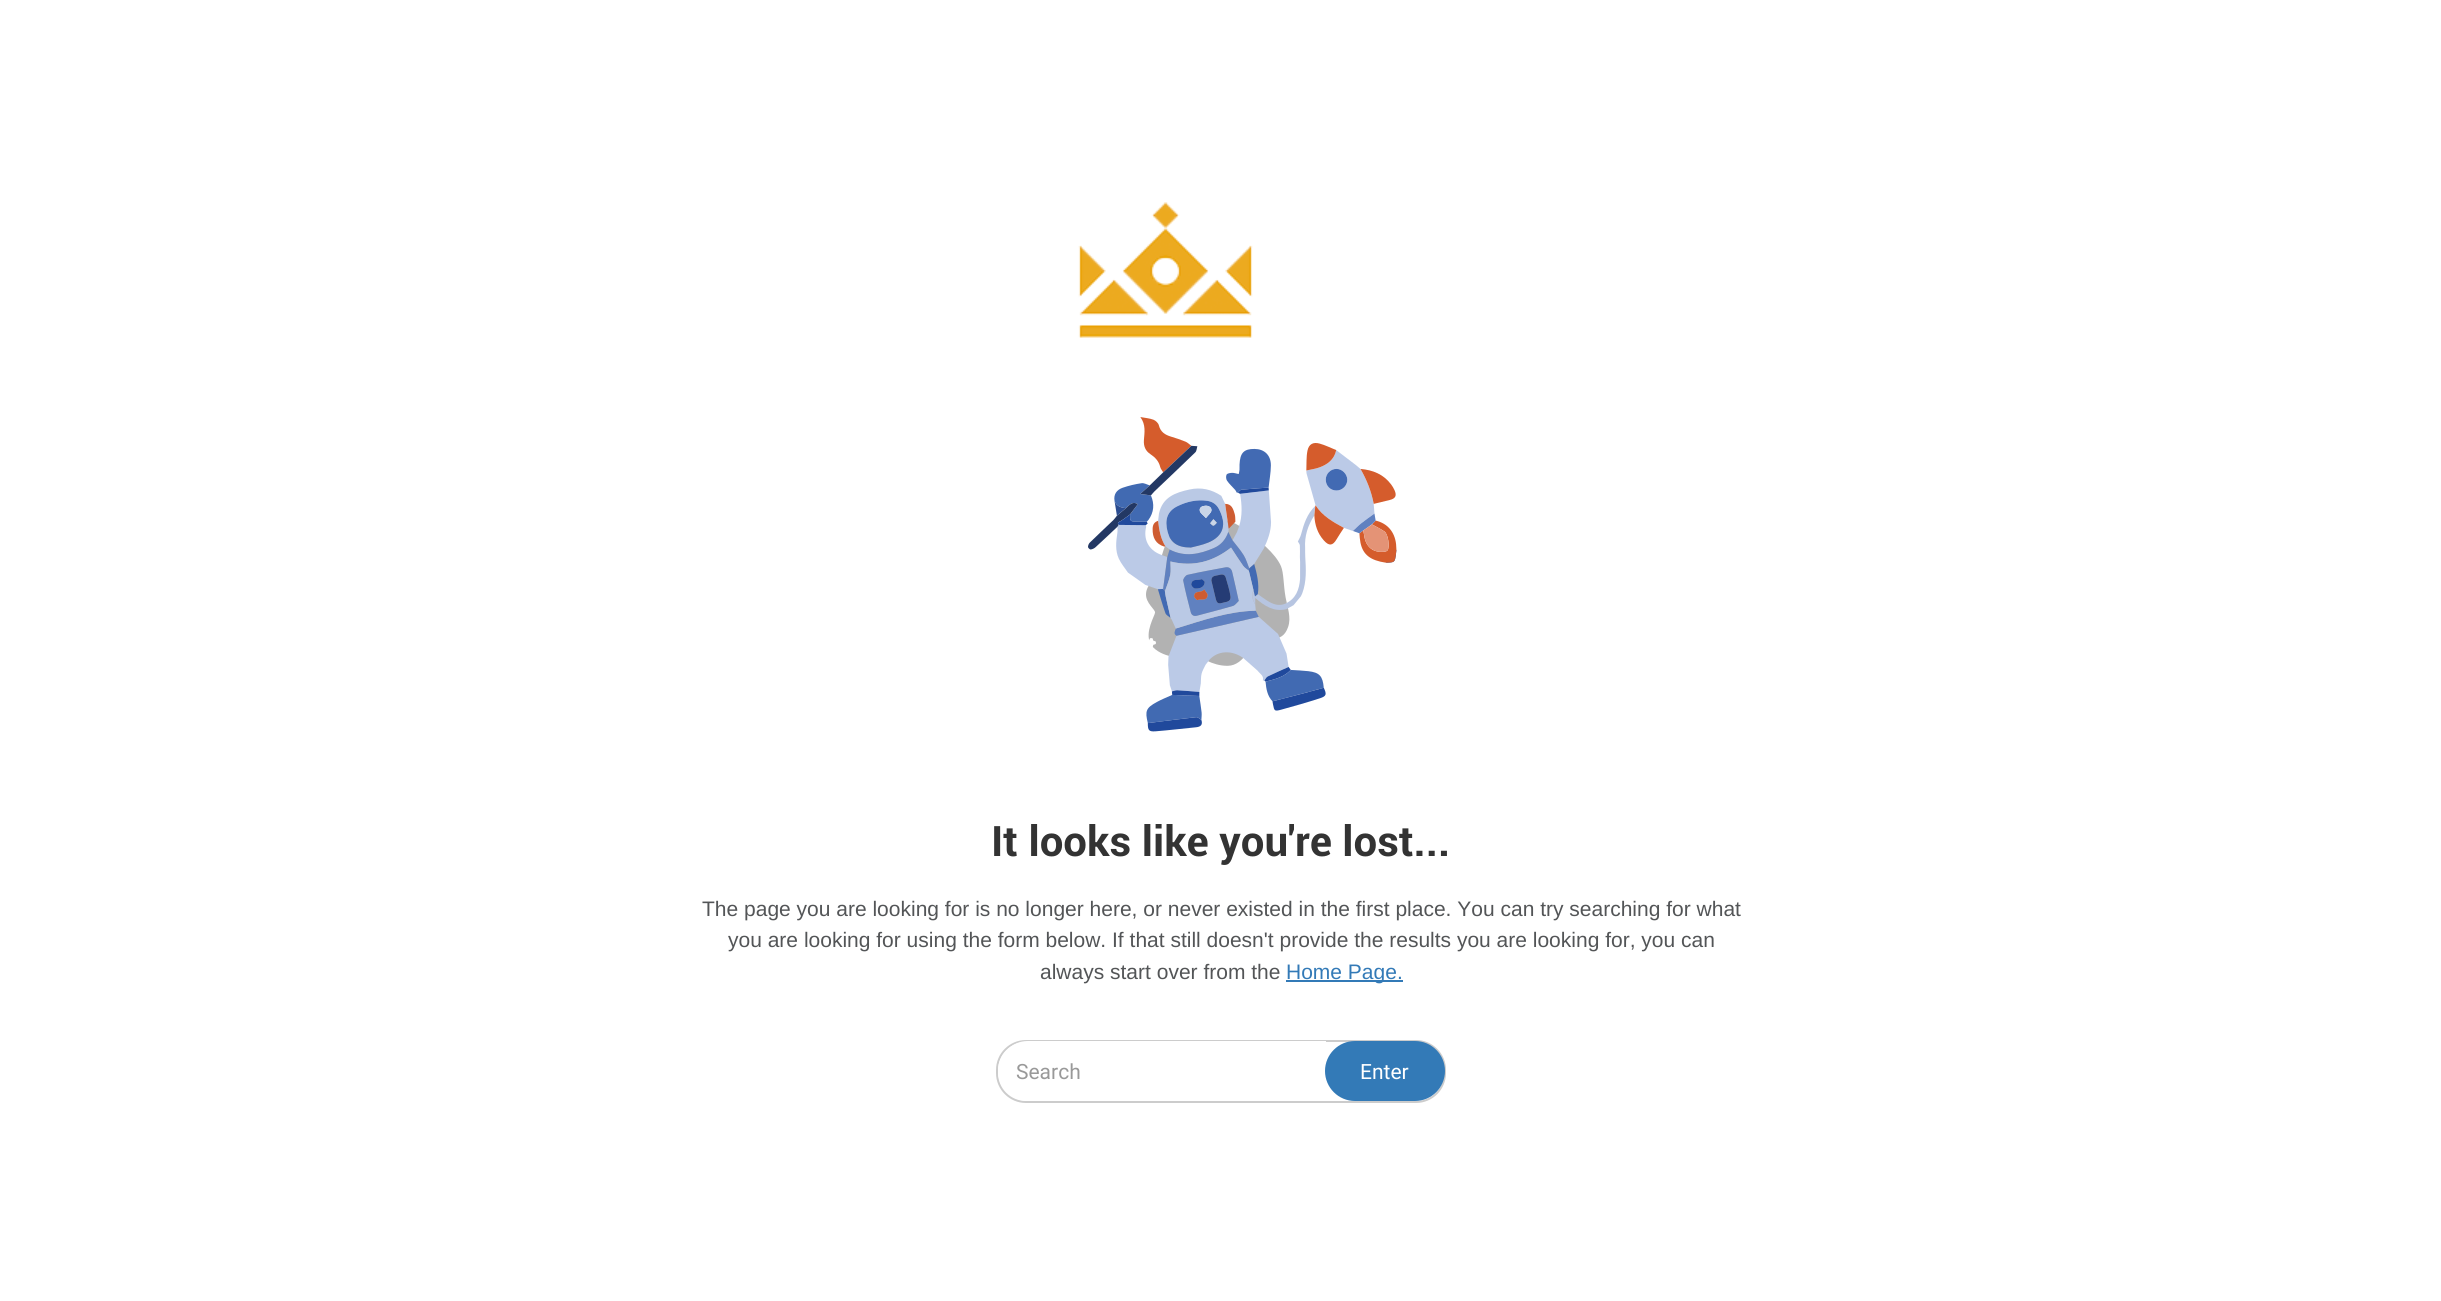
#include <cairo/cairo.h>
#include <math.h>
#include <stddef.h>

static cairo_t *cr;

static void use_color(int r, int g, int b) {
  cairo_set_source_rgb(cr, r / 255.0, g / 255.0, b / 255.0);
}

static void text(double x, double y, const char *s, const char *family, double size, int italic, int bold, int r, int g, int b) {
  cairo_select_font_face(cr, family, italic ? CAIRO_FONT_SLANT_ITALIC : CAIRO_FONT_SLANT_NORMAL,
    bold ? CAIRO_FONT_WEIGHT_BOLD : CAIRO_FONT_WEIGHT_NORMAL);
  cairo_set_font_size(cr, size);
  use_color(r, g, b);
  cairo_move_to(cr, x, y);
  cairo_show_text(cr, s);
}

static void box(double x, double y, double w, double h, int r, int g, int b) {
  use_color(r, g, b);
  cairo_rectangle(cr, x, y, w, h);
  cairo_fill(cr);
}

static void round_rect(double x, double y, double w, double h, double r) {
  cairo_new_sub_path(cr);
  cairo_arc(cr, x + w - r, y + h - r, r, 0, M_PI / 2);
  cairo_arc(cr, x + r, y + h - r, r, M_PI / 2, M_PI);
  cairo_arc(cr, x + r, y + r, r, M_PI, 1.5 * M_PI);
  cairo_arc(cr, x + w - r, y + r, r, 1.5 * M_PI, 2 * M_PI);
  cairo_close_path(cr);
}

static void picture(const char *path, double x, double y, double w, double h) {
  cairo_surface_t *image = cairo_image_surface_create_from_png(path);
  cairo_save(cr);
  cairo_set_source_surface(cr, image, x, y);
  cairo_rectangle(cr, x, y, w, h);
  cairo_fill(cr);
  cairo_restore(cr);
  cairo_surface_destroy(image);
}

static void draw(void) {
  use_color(255, 255, 255);
  cairo_paint(cr);
  picture("img_01.png", 1078, 202, 175, 136);
  picture("img_02.png", 1088, 417, 309, 315);
  box(1286, 980, 117, 2, 51, 122, 183);
  round_rect(997, 1041, 448, 61, 29);
  use_color(204, 204, 204);
  cairo_stroke(cr);
  use_color(255, 255, 255);
  cairo_new_path(cr);
  cairo_move_to(cr, 1028, 1041);
  cairo_line_to(cr, 1326, 1041);
  cairo_line_to(cr, 1326, 1101);
  cairo_line_to(cr, 1028, 1101);
  cairo_curve_to(cr, 1011.5, 1101, 998, 1087.5, 998, 1071);
  cairo_curve_to(cr, 998, 1054.5, 1011.5, 1041, 1028, 1041);
  cairo_close_path(cr);
  cairo_fill(cr);
  use_color(51, 122, 183);
  round_rect(1325, 1041, 120, 60, 30);
  cairo_fill(cr);
  text(991, 856, "It looks like you're lost...", "Roboto", 42, 0, 1, 51, 51, 51);
  text(702, 916, "The page you are looking for is no longer here, or never existed in the first place. You can try searching for what", "Liberation Sans", 21, 0, 0, 83, 85, 87);
  text(728, 947, "you are looking for using the form below. If that still doesn't provide the results you are looking for, you can", "Liberation Sans", 21, 0, 0, 83, 85, 87);
  text(1040, 979, "always start over from the", "Liberation Sans", 21, 0, 0, 83, 85, 87);
  text(1286, 979, "Home Page.", "Liberation Sans", 21, 0, 0, 51, 122, 183);
  text(1016, 1079, "Search", "Roboto", 21, 0, 0, 153, 153, 153);
  text(1360, 1079, "Enter", "Roboto", 21, 0, 0, 255, 255, 255);
}

int main(void) {
  cairo_surface_t *surface = cairo_image_surface_create(CAIRO_FORMAT_RGB24, 2441, 1301);
  cr = cairo_create(surface);
  cairo_font_options_t *options = cairo_font_options_create();
  cairo_font_options_set_hint_metrics(options, CAIRO_HINT_METRICS_OFF);
  cairo_font_options_set_hint_style(options, CAIRO_HINT_STYLE_NONE);
  cairo_set_font_options(cr, options);
  cairo_set_miter_limit(cr, 4);
  draw();
  cairo_surface_write_to_png(surface, "out.png");
  cairo_font_options_destroy(options);
  cairo_destroy(cr);
  cairo_surface_destroy(surface);
  return 0;
}
